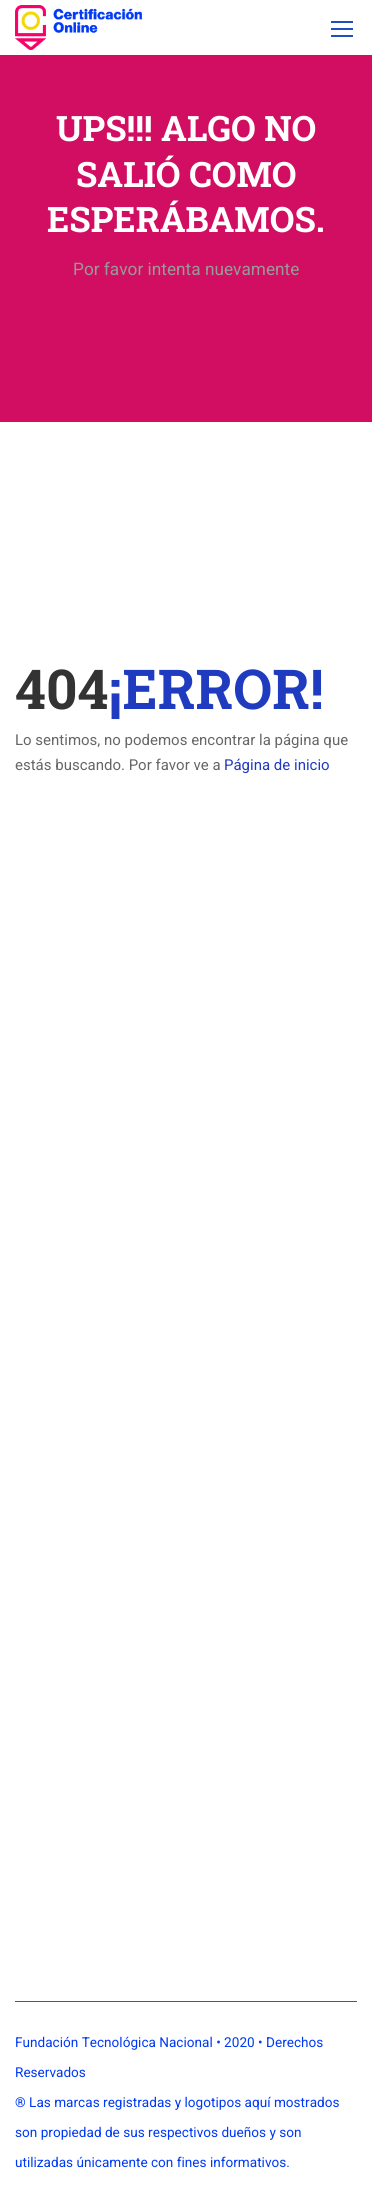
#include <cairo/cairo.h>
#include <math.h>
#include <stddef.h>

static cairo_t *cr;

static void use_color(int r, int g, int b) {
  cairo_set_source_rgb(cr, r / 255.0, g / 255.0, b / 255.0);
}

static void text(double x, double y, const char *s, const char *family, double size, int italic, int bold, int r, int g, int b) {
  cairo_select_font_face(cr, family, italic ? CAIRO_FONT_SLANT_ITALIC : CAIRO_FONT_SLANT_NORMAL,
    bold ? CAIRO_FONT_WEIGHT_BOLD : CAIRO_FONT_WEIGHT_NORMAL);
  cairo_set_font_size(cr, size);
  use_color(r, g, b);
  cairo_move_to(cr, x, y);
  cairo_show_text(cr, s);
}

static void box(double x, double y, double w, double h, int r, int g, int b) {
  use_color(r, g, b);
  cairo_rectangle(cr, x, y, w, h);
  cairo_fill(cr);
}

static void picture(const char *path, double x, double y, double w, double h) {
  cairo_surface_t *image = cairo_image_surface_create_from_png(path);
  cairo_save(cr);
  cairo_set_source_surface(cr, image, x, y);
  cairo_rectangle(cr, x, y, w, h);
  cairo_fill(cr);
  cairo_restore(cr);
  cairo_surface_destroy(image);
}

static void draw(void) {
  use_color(255, 255, 255);
  cairo_paint(cr);
  picture("img_01.png", 15, 5, 127, 45);
  box(331, 21, 22, 2, 31, 79, 191);
  box(331, 28, 22, 2, 31, 79, 191);
  box(331, 35, 22, 2, 31, 79, 191);
  box(0, 55, 372, 367, 209, 14, 97);
  box(15, 2001, 342, 1, 247, 2, 104);
  text(56, 141, "UPS!!! ALGO NO", "Roboto Slab", 35, 0, 1, 255, 255, 255);
  text(76, 187, "SALIÓ COMO", "Roboto Slab", 35, 0, 1, 255, 255, 255);
  text(47, 232, "ESPERÁBAMOS.", "Roboto Slab", 35, 0, 1, 255, 255, 255);
  text(73, 275, "Por favor intenta nuevamente", "Roboto", 17.25, 0, 0, 153, 153, 153);
  text(15, 709, "404", "Roboto Slab", 55, 0, 1, 51, 51, 51);
  text(109, 709, "¡ERROR!", "Roboto Slab", 55, 0, 1, 31, 59, 191);
  text(15, 745, "Lo sentimos, no podemos encontrar la página que", "Roboto", 15, 0, 0, 102, 102, 102);
  text(15, 770, "estás buscando. Por favor ve a", "Roboto", 15, 0, 0, 102, 102, 102);
  text(224, 770, "Página de inicio", "Roboto", 15, 0, 0, 31, 59, 191);
  text(15, 2047, "Fundación Tecnológica Nacional • 2020 • Derechos", "Roboto", 13.6, 0, 0, 0, 57, 245);
  text(15, 2077, "Reservados", "Roboto", 13.6, 0, 0, 0, 57, 245);
  text(15, 2107, "® Las marcas registradas y logotipos aquí mostrados", "Roboto", 13.6, 0, 0, 0, 57, 245);
  text(15, 2137, "son propiedad de sus respectivos dueños y son", "Roboto", 13.6, 0, 0, 0, 57, 245);
  text(15, 2167, "utilizadas únicamente con fines informativos.", "Roboto", 13.6, 0, 0, 0, 57, 245);
}

int main(void) {
  cairo_surface_t *surface = cairo_image_surface_create(CAIRO_FORMAT_RGB24, 372, 2202);
  cr = cairo_create(surface);
  cairo_font_options_t *options = cairo_font_options_create();
  cairo_font_options_set_hint_metrics(options, CAIRO_HINT_METRICS_OFF);
  cairo_font_options_set_hint_style(options, CAIRO_HINT_STYLE_NONE);
  cairo_set_font_options(cr, options);
  cairo_set_miter_limit(cr, 4);
  draw();
  cairo_surface_write_to_png(surface, "out.png");
  cairo_font_options_destroy(options);
  cairo_destroy(cr);
  cairo_surface_destroy(surface);
  return 0;
}
